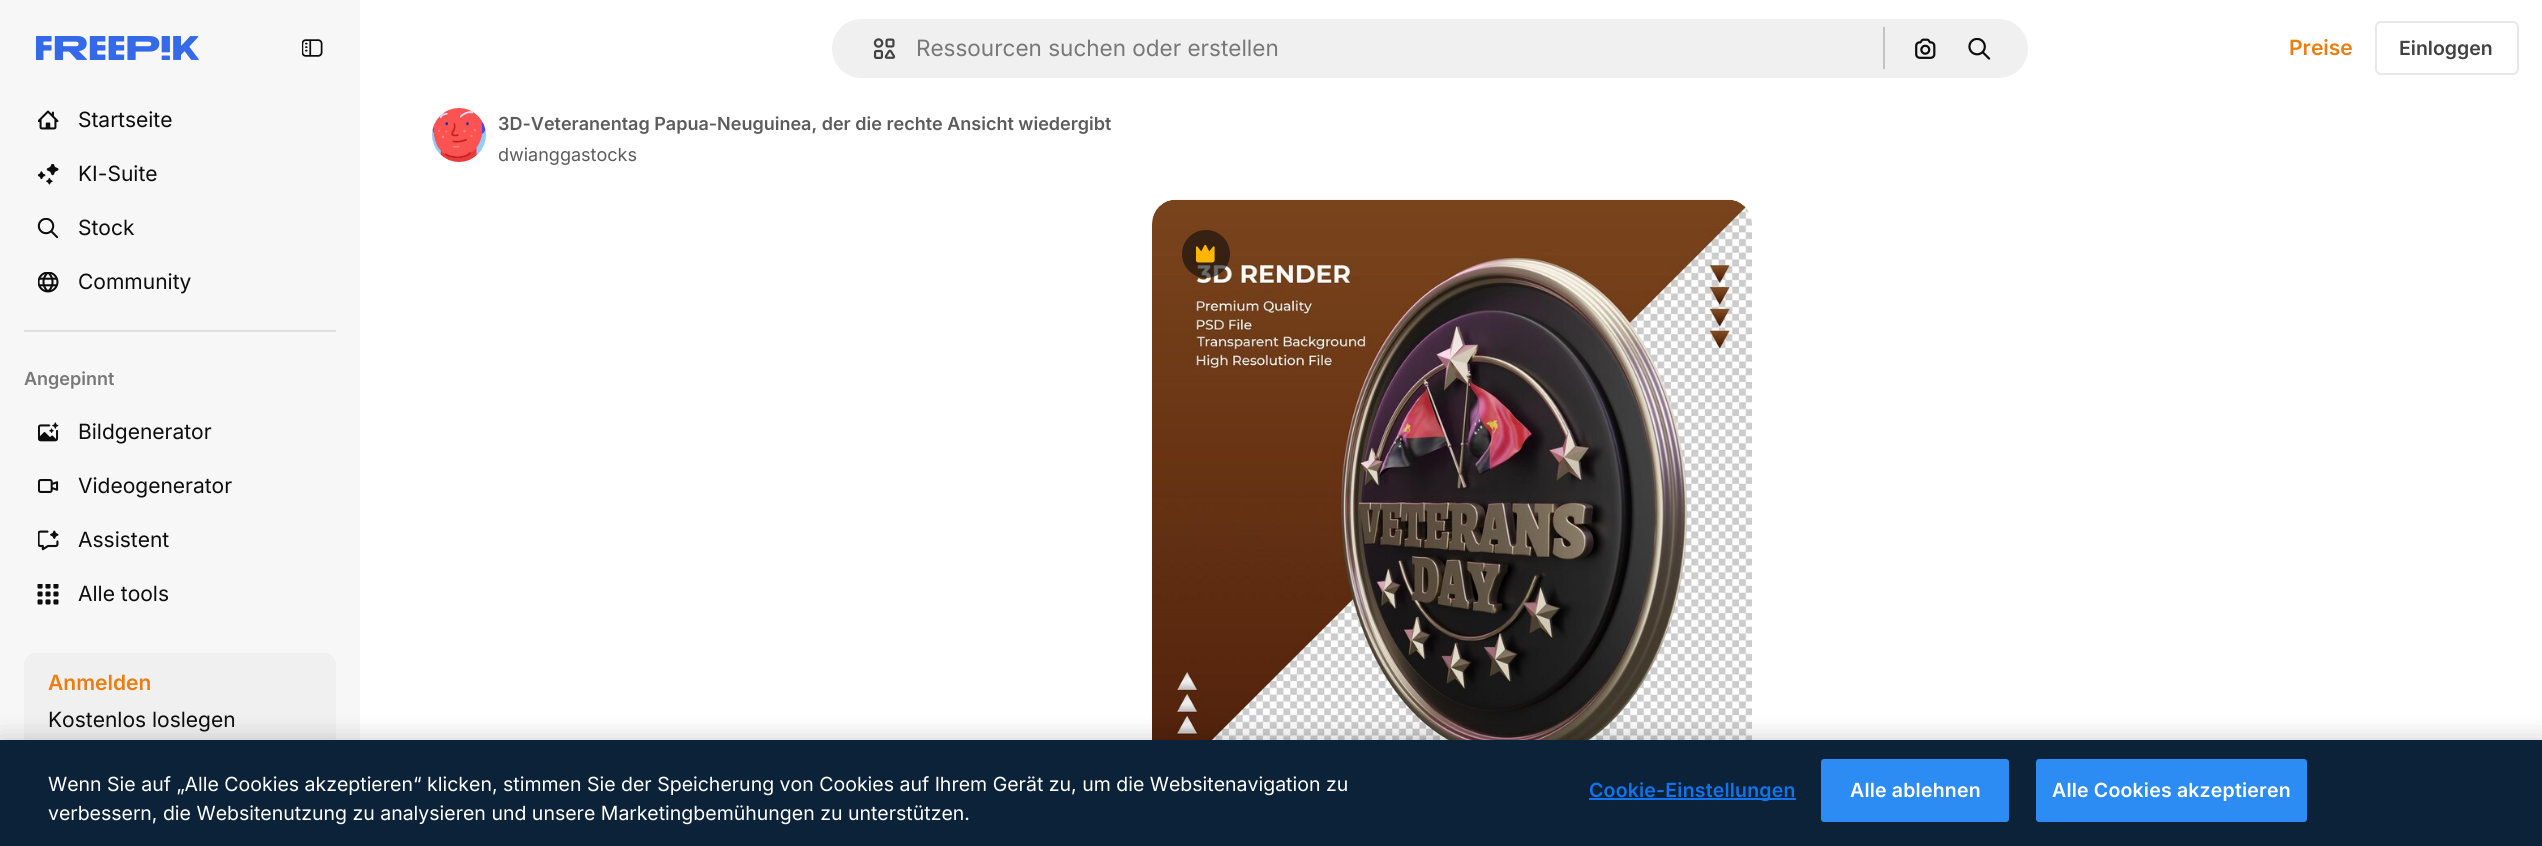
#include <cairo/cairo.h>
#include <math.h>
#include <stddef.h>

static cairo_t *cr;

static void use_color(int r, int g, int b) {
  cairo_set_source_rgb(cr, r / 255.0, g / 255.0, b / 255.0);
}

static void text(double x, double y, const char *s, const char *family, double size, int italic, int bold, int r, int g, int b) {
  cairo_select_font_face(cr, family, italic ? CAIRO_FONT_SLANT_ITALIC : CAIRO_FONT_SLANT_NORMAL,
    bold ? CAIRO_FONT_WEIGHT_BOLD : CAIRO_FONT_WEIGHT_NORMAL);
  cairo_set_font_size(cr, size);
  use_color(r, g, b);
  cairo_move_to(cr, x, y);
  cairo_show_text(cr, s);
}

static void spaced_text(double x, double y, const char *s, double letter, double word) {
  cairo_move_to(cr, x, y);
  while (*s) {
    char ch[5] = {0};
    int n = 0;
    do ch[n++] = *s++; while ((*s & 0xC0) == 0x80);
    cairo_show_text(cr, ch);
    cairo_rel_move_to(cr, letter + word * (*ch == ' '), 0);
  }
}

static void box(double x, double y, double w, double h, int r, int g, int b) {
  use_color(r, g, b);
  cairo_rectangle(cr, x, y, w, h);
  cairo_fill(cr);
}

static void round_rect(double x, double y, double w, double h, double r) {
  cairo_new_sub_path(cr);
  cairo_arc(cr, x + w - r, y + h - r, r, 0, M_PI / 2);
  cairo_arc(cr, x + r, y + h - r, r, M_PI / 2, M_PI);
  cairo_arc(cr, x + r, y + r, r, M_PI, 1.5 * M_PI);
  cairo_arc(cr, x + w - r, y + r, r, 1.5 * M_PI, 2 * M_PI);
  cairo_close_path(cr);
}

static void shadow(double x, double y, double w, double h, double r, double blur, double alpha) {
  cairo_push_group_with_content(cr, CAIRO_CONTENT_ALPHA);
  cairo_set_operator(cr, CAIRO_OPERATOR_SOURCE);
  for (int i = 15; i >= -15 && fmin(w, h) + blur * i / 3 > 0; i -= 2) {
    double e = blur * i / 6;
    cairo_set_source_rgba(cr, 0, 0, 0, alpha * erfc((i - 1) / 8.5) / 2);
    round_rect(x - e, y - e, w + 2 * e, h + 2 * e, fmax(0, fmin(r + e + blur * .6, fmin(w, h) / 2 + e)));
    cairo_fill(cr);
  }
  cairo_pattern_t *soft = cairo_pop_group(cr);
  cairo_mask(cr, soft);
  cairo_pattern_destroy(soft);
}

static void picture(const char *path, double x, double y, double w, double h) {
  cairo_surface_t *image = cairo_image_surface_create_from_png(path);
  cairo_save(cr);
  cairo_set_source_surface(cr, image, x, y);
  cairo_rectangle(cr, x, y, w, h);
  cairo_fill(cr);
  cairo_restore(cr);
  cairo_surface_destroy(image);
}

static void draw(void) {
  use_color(255, 255, 255);
  cairo_paint(cr);
  box(0, 0, 360, 740, 247, 247, 247);
  picture("img_01.png", 36, 36, 163, 24);
  picture("img_02.png", 302, 39, 21, 18);
  picture("img_03.png", 38, 110, 21, 20);
  picture("img_04.png", 38, 164, 21, 21);
  picture("img_05.png", 37, 218, 22, 21);
  picture("img_06.png", 38, 272, 21, 21);
  box(24, 330, 312, 2, 224, 224, 224);
  picture("img_07.png", 38, 422, 21, 20);
  picture("img_08.png", 38, 479, 21, 14);
  picture("img_09.png", 38, 530, 21, 21);
  picture("img_10.png", 37, 584, 22, 21);
  use_color(240, 240, 240);
  round_rect(24, 653, 312, 97, 12);
  cairo_fill(cr);
  round_rect(831, 18, 1198, 61, 30.5);
  cairo_fill_preserve(cr);
  use_color(255, 255, 255);
  cairo_stroke(cr);
  picture("img_11.png", 873, 38, 23, 21);
  box(1883, 27, 2, 42, 195, 195, 195);
  picture("img_12.png", 1915, 38, 21, 21);
  picture("img_13.png", 1968, 38, 23, 22);
  round_rect(2376, 22, 142, 52, 5);
  use_color(231, 231, 231);
  cairo_stroke(cr);
  picture("img_14.png", 432, 108, 54, 54);
  picture("img_15.png", 1152, 199, 600, 541);
  cairo_set_source_rgba(cr, 0.051, 0.051, 0.051, 0.6);
  cairo_arc(cr, 1206, 254, 24, 0, 2 * M_PI);
  cairo_fill(cr);
  picture("img_16.png", 1196, 245, 19, 18);
  use_color(0, 0, 0);
  shadow(0, 740, 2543, 106, 0, 13.5, 0.2);
  box(0, 740, 2542, 106, 11, 34, 57);
  box(1589, 798, 207, 2, 18, 115, 235);
  use_color(44, 140, 244);
  round_rect(1822, 760, 186, 61, 2);
  cairo_fill_preserve(cr);
  cairo_stroke(cr);
  round_rect(2037, 760, 269, 61, 2);
  cairo_fill_preserve(cr);
  cairo_stroke(cr);
  text(78, 127, "Startseite", "Inter", 21, 0, 0, 13, 13, 13);
  text(78, 181, "KI-Suite", "Inter", 21, 0, 0, 13, 13, 13);
  text(78, 235, "Stock", "Inter", 21, 0, 0, 13, 13, 13);
  text(78, 289, "Community", "Inter", 21, 0, 0, 13, 13, 13);
  text(24, 385, "Angepinnt", "Inter SemiBold", 18, 0, 0, 120, 120, 120);
  text(78, 439, "Bildgenerator", "Inter", 21, 0, 0, 13, 13, 13);
  text(78, 493, "Videogenerator", "Inter", 21, 0, 0, 13, 13, 13);
  text(78, 547, "Assistent", "Inter", 21, 0, 0, 13, 13, 13);
  text(78, 601, "Alle tools", "Inter", 21, 0, 0, 13, 13, 13);
  text(48, 690, "Anmelden", "Inter SemiBold", 21, 0, 0, 234, 126, 17);
  text(48, 727, "Kostenlos loslegen", "Inter", 21, 0, 0, 13, 13, 13);
  text(916, 56, "Ressourcen suchen oder erstellen", "Inter", 22.5, 0, 0, 120, 120, 120);
  text(2289, 55, "Preise", "Inter SemiBold", 21, 0, 0, 234, 126, 17);
  text(2399, 55, "Einloggen", "Inter SemiBold", 19.5, 0, 0, 66, 66, 66);
  text(498, 130, "3D-Veteranentag Papua-Neuguinea, der die rechte Ansicht wiedergibt", "Inter SemiBold", 18, 0, 0, 92, 92, 92);
  text(498, 161, "dwianggastocks", "Inter", 18, 0, 0, 92, 92, 92);
  text(48, 791, "Wenn Sie auf „Alle Cookies akzeptieren“ klicken, stimmen Sie der Speicherung von Cookies auf Ihrem Gerät zu, um die Websitenavigation zu", "Inter", 19.5, 0, 0, 255, 255, 255);
  text(48, 820, "verbessern, die Websitenutzung zu analysieren und unsere Marketingbemühungen zu unterstützen.", "Inter", 19.5, 0, 0, 255, 255, 255);
  cairo_select_font_face(cr, "Inter SemiBold", CAIRO_FONT_SLANT_NORMAL, CAIRO_FONT_WEIGHT_NORMAL);
  use_color(18, 115, 235);
  spaced_text(1589, 797, "Cookie-Einstellungen", 0.2, 0);
  use_color(255, 255, 255);
  spaced_text(1850, 797, "Alle ablehnen", 0.2, 0);
  spaced_text(2052, 797, "Alle Cookies akzeptieren", 0.2, 0);
}

int main(void) {
  cairo_surface_t *surface = cairo_image_surface_create(CAIRO_FORMAT_RGB24, 2542, 846);
  cr = cairo_create(surface);
  cairo_font_options_t *options = cairo_font_options_create();
  cairo_font_options_set_hint_metrics(options, CAIRO_HINT_METRICS_OFF);
  cairo_font_options_set_hint_style(options, CAIRO_HINT_STYLE_NONE);
  cairo_set_font_options(cr, options);
  cairo_set_miter_limit(cr, 4);
  draw();
  cairo_surface_write_to_png(surface, "out.png");
  cairo_font_options_destroy(options);
  cairo_destroy(cr);
  cairo_surface_destroy(surface);
  return 0;
}
